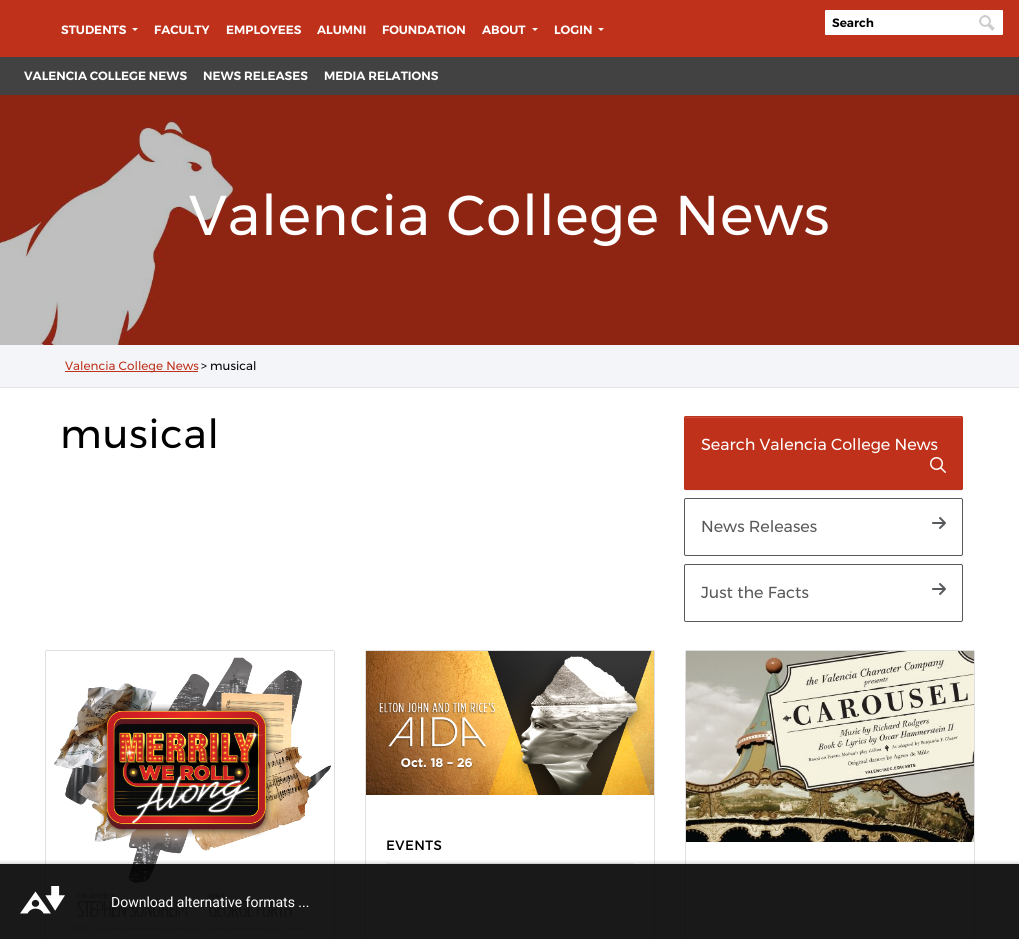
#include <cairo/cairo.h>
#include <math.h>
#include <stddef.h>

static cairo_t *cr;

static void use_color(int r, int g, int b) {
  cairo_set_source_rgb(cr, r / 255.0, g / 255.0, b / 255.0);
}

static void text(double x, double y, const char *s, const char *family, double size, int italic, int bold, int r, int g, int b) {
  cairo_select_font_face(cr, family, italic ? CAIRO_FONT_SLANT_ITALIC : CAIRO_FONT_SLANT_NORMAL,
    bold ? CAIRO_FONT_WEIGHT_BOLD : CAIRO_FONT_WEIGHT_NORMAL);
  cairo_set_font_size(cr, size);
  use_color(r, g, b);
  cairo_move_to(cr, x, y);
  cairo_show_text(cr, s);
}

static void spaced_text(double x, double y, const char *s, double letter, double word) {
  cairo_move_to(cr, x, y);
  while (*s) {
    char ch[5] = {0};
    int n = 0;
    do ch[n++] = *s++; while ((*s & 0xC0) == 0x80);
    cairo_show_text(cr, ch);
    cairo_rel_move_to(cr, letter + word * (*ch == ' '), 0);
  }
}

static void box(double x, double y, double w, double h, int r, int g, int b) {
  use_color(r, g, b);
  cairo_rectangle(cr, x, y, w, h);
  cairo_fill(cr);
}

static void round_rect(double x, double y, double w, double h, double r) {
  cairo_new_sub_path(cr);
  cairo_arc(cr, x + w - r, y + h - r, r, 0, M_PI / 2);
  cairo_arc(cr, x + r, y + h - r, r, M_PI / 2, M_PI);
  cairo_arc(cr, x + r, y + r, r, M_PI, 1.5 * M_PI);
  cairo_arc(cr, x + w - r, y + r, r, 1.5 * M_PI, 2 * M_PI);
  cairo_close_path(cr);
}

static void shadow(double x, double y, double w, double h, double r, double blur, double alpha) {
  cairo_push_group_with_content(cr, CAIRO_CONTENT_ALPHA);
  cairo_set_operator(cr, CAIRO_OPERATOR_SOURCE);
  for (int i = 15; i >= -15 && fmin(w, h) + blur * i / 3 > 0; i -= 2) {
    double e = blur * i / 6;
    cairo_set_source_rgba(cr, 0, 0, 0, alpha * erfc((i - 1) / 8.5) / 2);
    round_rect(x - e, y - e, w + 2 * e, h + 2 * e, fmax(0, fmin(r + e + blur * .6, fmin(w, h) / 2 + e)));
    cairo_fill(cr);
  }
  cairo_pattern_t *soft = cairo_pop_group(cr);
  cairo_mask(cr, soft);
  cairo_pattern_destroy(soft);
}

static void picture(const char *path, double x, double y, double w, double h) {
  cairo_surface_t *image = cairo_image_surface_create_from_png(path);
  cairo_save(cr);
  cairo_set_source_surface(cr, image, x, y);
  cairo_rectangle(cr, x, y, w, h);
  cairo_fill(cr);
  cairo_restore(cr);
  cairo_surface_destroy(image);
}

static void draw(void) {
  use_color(255, 255, 255);
  cairo_paint(cr);
  box(0, 0, 1019, 57, 191, 49, 26);
  use_color(255, 255, 255);
  round_rect(825, 10, 178, 25, 1);
  cairo_fill(cr);
  picture("img_01.png", 979, 15, 16, 16);
  cairo_new_path(cr);
  cairo_move_to(cr, 132, 28);
  cairo_line_to(cr, 138, 28);
  cairo_line_to(cr, 135, 31);
  cairo_close_path(cr);
  cairo_fill(cr);
  cairo_new_path(cr);
  cairo_move_to(cr, 532, 28);
  cairo_line_to(cr, 538, 28);
  cairo_line_to(cr, 535, 31);
  cairo_close_path(cr);
  cairo_fill(cr);
  cairo_new_path(cr);
  cairo_move_to(cr, 598, 28);
  cairo_line_to(cr, 604, 28);
  cairo_line_to(cr, 601, 31);
  cairo_close_path(cr);
  cairo_fill(cr);
  box(0, 57, 1019, 38, 66, 66, 66);
  picture("img_02.png", 0, 95, 1019, 250);
  box(0, 345, 1019, 42, 243, 245, 248);
  box(0, 387, 1019, 1, 228, 228, 228);
  box(65, 371, 133, 1, 191, 49, 26);
  use_color(0, 0, 0);
  shadow(684, 417, 279, 74, 2, 0.5, 0.07);
  use_color(191, 49, 26);
  round_rect(684, 416, 279, 74, 2);
  cairo_fill(cr);
  use_color(201, 80, 60);
  cairo_new_path(cr);
  cairo_move_to(cr, 686, 418);
  cairo_line_to(cr, 961, 418);
  cairo_curve_to(cr, 962, 418, 962, 418, 962, 419);
  cairo_curve_to(cr, 962, 418, 962, 417, 961, 417);
  cairo_line_to(cr, 686, 417);
  cairo_line_to(cr, 685, 417);
  cairo_line_to(cr, 685, 419);
  cairo_curve_to(cr, 685, 418, 685, 418, 686, 418);
  cairo_close_path(cr);
  cairo_fill(cr);
  round_rect(684.5, 416.5, 278, 73, 1.5);
  use_color(191, 49, 26);
  cairo_set_line_width(cr, 1);
  cairo_stroke(cr);
  picture("img_03.png", 930, 457, 16, 16);
  round_rect(684.5, 498.5, 278, 57, 1.5);
  use_color(88, 89, 91);
  cairo_stroke(cr);
  picture("img_04.png", 932, 517, 14, 12);
  round_rect(684.5, 564.5, 278, 57, 1.5);
  cairo_stroke(cr);
  picture("img_04.png", 932, 583, 14, 12);
  round_rect(45.5, 650.5, 289, 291, 1.5);
  use_color(223, 223, 223);
  cairo_stroke(cr);
  picture("img_05.png", 46, 651, 288, 279);
  round_rect(365.5, 650.5, 289, 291, 1.5);
  cairo_stroke(cr);
  picture("img_06.png", 366, 651, 288, 144);
  box(386, 863, 248, 1, 237, 237, 237);
  round_rect(685.5, 650.5, 289, 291, 1.5);
  use_color(223, 223, 223);
  cairo_stroke(cr);
  picture("img_07.png", 686, 651, 288, 191);
  box(706, 910, 248, 1, 237, 237, 237);
  cairo_save(cr);
  cairo_rectangle(cr, 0, 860, 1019, 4);
  cairo_clip(cr);
  use_color(0, 0, 0);
  shadow(0, 864, 1019, 75, 0, 2.5, 0.3);
  cairo_restore(cr);
  cairo_set_source_rgba(cr, 0, 0, 0, 0.9);
  cairo_rectangle(cr, 0, 864, 1019, 75);
  cairo_fill(cr);
  picture("img_08.png", 20, 886, 45, 28);
  text(832, 27, "Search", "Montserrat SemiBold", 12, 0, 0, 0, 0, 0);
  text(61, 34, "STUDENTS", "Montserrat SemiBold", 12, 0, 0, 255, 255, 255);
  text(154, 34, "FACULTY", "Montserrat SemiBold", 12, 0, 0, 255, 255, 255);
  text(226, 34, "EMPLOYEES", "Montserrat SemiBold", 12, 0, 0, 255, 255, 255);
  text(317, 34, "ALUMNI", "Montserrat SemiBold", 12, 0, 0, 255, 255, 255);
  text(382, 34, "FOUNDATION", "Montserrat SemiBold", 12, 0, 0, 255, 255, 255);
  text(482, 34, "ABOUT", "Montserrat SemiBold", 12, 0, 0, 255, 255, 255);
  text(554, 34, "LOGIN", "Montserrat SemiBold", 12, 0, 0, 255, 255, 255);
  text(24, 80, "VALENCIA COLLEGE NEWS", "Montserrat SemiBold", 12, 0, 0, 255, 255, 255);
  text(203, 80, "NEWS RELEASES", "Montserrat SemiBold", 12, 0, 0, 255, 255, 255);
  text(324, 80, "MEDIA RELATIONS", "Montserrat SemiBold", 12, 0, 0, 255, 255, 255);
  cairo_select_font_face(cr, "Montserrat", CAIRO_FONT_SLANT_NORMAL, CAIRO_FONT_WEIGHT_NORMAL);
  cairo_set_font_size(cr, 56);
  spaced_text(189, 235, "Valencia College News", 0.8, 0);
  text(65, 370, "Valencia College News", "Montserrat", 12, 0, 0, 191, 49, 26);
  text(201, 370, "> musical", "Montserrat", 12, 0, 0, 0, 0, 0);
  cairo_set_font_size(cr, 40);
  spaced_text(60, 448, "musical", 0.8, 0);
  text(701, 450, "Search Valencia College News", "Montserrat", 16, 0, 0, 255, 255, 255);
  text(701, 532, "News Releases", "Montserrat", 16, 0, 0, 88, 89, 91);
  text(701, 598, "Just the Facts", "Montserrat", 16, 0, 0, 88, 89, 91);
  cairo_select_font_face(cr, "Montserrat", CAIRO_FONT_SLANT_NORMAL, CAIRO_FONT_WEIGHT_BOLD);
  cairo_set_font_size(cr, 13);
  use_color(0, 0, 0);
  spaced_text(386, 850, "EVENTS", 0.8, 0);
  text(111, 907, "Download alternative formats ...", "Roboto", 14, 0, 0, 255, 255, 255);
}

int main(void) {
  cairo_surface_t *surface = cairo_image_surface_create(CAIRO_FORMAT_RGB24, 1019, 939);
  cr = cairo_create(surface);
  cairo_font_options_t *options = cairo_font_options_create();
  cairo_font_options_set_hint_metrics(options, CAIRO_HINT_METRICS_OFF);
  cairo_font_options_set_hint_style(options, CAIRO_HINT_STYLE_NONE);
  cairo_set_font_options(cr, options);
  cairo_set_miter_limit(cr, 4);
  draw();
  cairo_surface_write_to_png(surface, "out.png");
  cairo_font_options_destroy(options);
  cairo_destroy(cr);
  cairo_surface_destroy(surface);
  return 0;
}
